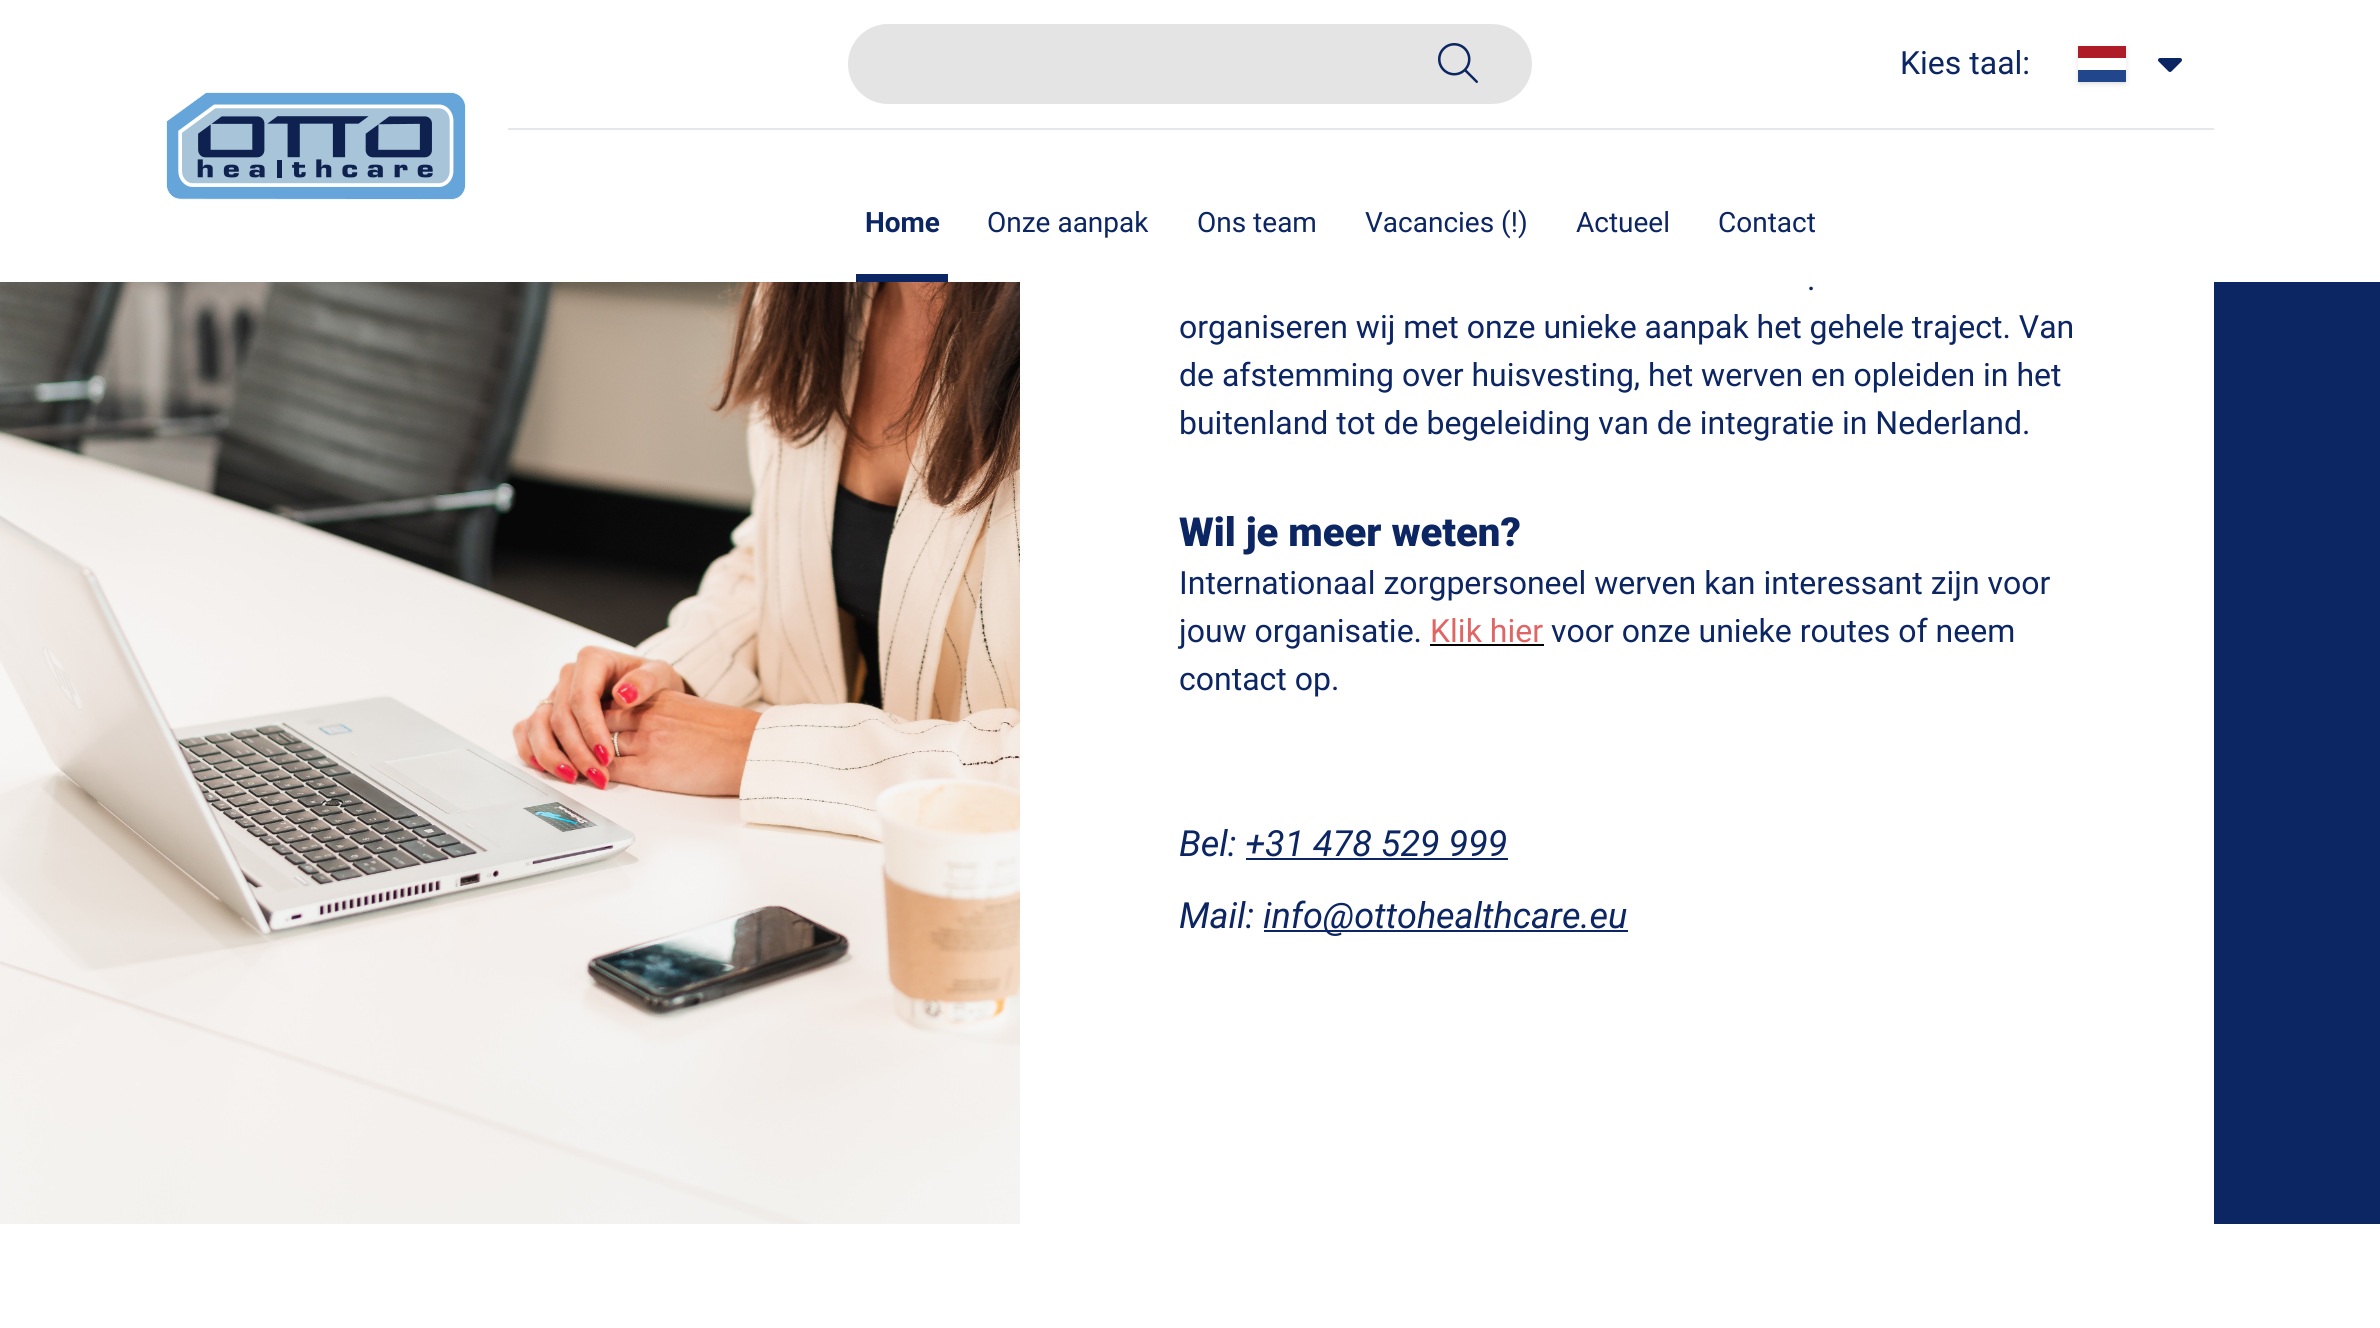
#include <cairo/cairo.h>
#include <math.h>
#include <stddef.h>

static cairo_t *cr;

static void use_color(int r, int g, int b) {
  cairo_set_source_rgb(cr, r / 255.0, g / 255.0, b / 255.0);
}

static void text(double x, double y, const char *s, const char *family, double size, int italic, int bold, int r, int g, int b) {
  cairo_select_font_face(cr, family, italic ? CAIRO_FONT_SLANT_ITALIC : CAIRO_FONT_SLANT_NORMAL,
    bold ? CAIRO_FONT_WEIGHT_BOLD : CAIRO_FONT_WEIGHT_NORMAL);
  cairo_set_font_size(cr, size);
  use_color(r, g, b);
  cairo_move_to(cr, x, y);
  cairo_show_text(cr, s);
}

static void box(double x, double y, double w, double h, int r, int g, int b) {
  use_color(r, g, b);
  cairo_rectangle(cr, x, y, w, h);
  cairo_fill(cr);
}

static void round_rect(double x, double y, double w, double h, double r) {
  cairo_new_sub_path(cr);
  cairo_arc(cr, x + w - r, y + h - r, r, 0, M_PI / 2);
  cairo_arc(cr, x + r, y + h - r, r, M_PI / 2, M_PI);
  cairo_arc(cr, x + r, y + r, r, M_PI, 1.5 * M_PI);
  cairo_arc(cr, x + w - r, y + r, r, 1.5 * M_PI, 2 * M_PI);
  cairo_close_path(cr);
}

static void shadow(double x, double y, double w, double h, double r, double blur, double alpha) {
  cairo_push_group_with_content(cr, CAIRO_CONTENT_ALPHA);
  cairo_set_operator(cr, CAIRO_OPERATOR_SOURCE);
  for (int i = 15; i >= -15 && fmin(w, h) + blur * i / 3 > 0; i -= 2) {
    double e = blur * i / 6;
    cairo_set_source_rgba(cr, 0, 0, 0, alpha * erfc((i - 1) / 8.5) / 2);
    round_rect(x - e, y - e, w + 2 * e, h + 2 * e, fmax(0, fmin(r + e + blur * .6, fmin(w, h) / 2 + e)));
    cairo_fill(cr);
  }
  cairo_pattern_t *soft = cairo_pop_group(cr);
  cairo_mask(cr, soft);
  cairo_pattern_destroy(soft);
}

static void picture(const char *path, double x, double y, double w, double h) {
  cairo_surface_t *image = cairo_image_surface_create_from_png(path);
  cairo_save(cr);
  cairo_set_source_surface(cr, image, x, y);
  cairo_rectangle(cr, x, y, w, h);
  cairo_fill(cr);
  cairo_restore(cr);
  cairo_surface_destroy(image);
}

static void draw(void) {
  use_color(255, 255, 255);
  cairo_paint(cr);
  use_color(228, 228, 228);
  round_rect(848, 24, 684, 80, 40);
  cairo_fill(cr);
  picture("img_01.png", 1438, 43, 40, 40);
  use_color(0, 0, 0);
  shadow(2080, 50, 44, 32, 0, 2, 0.1);
  shadow(2078, 48, 48, 36, 0, 3, 0.1);
  box(2078, 70, 48, 12, 33, 70, 139);
  box(2078, 58, 48, 12, 255, 255, 255);
  box(2078, 46, 48, 12, 174, 28, 40);
  picture("img_02.png", 2158, 58, 24, 14);
  box(508, 128, 1706, 2, 229, 231, 235);
  picture("img_03.png", 166, 92, 300, 108);
  box(856, 274, 92, 8, 12, 37, 99);
  box(2214, 282, 166, 942, 12, 37, 99);
  picture("img_04.png", 0, 282, 1020, 942);
  box(1430, 644, 114, 2, 0, 0, 0);
  box(1246, 858, 262, 2, 12, 37, 99);
  box(1264, 930, 364, 2, 12, 37, 99);
  text(1900, 74, "Kies taal:", "Roboto", 32, 0, 0, 12, 37, 99);
  text(865, 232, "Home", "Roboto", 28, 0, 1, 12, 37, 99);
  text(987, 232, "Onze aanpak", "Roboto", 28, 0, 0, 12, 37, 99);
  text(1197, 232, "Ons team", "Roboto", 28, 0, 0, 12, 37, 99);
  text(1365, 232, "Vacancies (!)", "Roboto", 28, 0, 0, 12, 37, 99);
  text(1576, 232, "Actueel", "Roboto", 28, 0, 0, 12, 37, 99);
  text(1718, 232, "Contact", "Roboto", 28, 0, 0, 12, 37, 99);
  text(1807, 290, ".", "Roboto", 32, 0, 0, 12, 37, 99);
  text(1179, 338, "organiseren wij met onze unieke aanpak het gehele traject. Van", "Roboto", 32, 0, 0, 12, 37, 99);
  text(1179, 386, "de afstemming over huisvesting, het werven en opleiden in het", "Roboto", 32, 0, 0, 12, 37, 99);
  text(1179, 434, "buitenland tot de begeleiding van de integratie in Nederland.", "Roboto", 32, 0, 0, 12, 37, 99);
  text(1179, 546, "Wil je meer weten?", "Roboto Black", 40, 0, 0, 12, 37, 99);
  text(1179, 594, "Internationaal zorgpersoneel werven kan interessant zijn voor", "Roboto", 32, 0, 0, 12, 37, 99);
  text(1179, 642, "jouw organisatie.", "Roboto", 32, 0, 0, 12, 37, 99);
  text(1430, 642, "Klik hier", "Roboto", 32, 0, 0, 224, 101, 101);
  text(1551, 642, "voor onze unieke routes of neem", "Roboto", 32, 0, 0, 12, 37, 99);
  text(1179, 690, "contact op.", "Roboto", 32, 0, 0, 12, 37, 99);
  text(1179, 856, "Bel: +31 478 529 999", "Roboto", 36, 1, 0, 12, 37, 99);
  text(1179, 928, "Mail:", "Roboto", 36, 1, 0, 12, 37, 99);
  text(1263, 928, "info@ottohealthcare.eu", "Roboto", 36, 1, 0, 12, 37, 99);
}

int main(void) {
  cairo_surface_t *surface = cairo_image_surface_create(CAIRO_FORMAT_RGB24, 2380, 1328);
  cr = cairo_create(surface);
  cairo_font_options_t *options = cairo_font_options_create();
  cairo_font_options_set_hint_metrics(options, CAIRO_HINT_METRICS_OFF);
  cairo_font_options_set_hint_style(options, CAIRO_HINT_STYLE_NONE);
  cairo_set_font_options(cr, options);
  cairo_set_miter_limit(cr, 4);
  draw();
  cairo_surface_write_to_png(surface, "out.png");
  cairo_font_options_destroy(options);
  cairo_destroy(cr);
  cairo_surface_destroy(surface);
  return 0;
}
